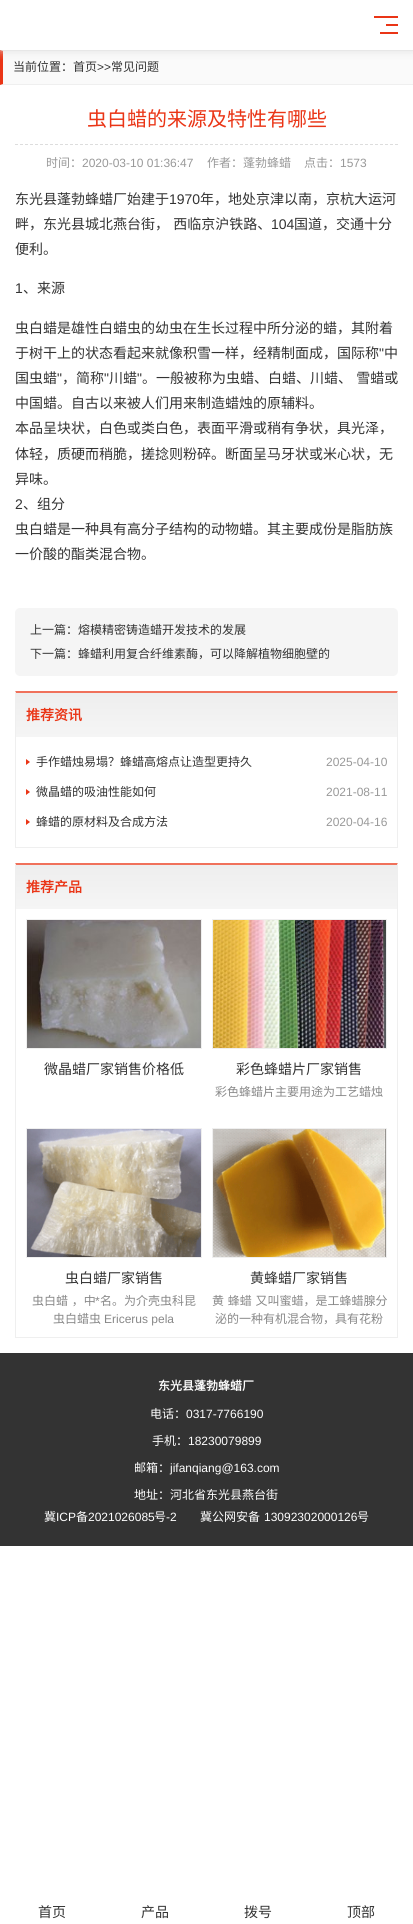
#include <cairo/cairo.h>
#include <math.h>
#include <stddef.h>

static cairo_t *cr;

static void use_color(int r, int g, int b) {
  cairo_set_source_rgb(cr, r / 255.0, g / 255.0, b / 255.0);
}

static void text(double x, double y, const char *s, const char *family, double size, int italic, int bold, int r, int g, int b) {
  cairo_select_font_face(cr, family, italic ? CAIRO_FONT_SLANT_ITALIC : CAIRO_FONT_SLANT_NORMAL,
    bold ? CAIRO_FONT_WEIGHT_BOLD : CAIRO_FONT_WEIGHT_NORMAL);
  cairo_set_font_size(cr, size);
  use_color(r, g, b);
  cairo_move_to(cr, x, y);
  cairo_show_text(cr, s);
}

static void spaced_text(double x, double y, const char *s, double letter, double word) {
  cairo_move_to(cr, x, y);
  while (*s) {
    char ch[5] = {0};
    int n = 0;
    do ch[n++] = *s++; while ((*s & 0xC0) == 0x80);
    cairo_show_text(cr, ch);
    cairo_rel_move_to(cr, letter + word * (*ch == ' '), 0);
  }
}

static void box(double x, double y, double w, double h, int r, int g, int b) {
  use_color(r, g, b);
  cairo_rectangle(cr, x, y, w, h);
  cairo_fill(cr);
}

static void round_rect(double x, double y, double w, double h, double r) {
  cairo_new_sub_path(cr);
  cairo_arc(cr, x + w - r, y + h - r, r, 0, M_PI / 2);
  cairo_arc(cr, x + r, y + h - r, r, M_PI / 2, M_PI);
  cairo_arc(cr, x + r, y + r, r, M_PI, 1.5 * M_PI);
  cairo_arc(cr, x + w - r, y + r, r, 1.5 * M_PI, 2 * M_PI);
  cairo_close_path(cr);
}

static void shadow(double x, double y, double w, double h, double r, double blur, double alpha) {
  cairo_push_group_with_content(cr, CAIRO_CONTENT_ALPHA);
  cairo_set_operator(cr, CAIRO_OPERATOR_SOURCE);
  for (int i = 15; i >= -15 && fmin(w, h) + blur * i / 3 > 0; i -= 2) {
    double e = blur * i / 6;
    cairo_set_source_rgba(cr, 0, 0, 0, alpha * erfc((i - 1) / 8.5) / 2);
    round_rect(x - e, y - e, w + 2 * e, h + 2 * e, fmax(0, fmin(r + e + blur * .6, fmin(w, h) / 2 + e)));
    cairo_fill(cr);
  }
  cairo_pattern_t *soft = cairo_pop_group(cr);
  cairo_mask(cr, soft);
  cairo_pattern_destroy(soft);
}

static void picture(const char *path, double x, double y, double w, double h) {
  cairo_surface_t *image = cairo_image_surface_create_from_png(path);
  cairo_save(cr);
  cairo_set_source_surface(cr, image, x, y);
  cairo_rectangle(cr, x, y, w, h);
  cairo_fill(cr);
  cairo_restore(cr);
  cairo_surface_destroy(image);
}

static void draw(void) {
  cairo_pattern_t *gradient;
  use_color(255, 255, 255);
  cairo_paint(cr);
  box(0, 50, 413, 35, 250, 250, 250);
  use_color(239, 239, 239);
  cairo_new_path(cr);
  cairo_move_to(cr, 0, 50);
  cairo_line_to(cr, 413, 50);
  cairo_line_to(cr, 413, 51);
  cairo_line_to(cr, 3, 51);
  cairo_close_path(cr);
  cairo_fill(cr);
  cairo_new_path(cr);
  cairo_move_to(cr, 413, 85);
  cairo_line_to(cr, 0, 85);
  cairo_line_to(cr, 3, 84);
  cairo_line_to(cr, 413, 84);
  cairo_close_path(cr);
  cairo_fill(cr);
  use_color(234, 53, 22);
  cairo_new_path(cr);
  cairo_move_to(cr, 0, 85);
  cairo_line_to(cr, 0, 50);
  cairo_line_to(cr, 3, 51);
  cairo_line_to(cr, 3, 84);
  cairo_close_path(cr);
  cairo_fill(cr);
  cairo_save(cr);
  cairo_rectangle(cr, 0, 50, 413, 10);
  cairo_clip(cr);
  use_color(221, 221, 221);
  shadow(0, 0, 413, 50, 0, 5, 1);
  cairo_restore(cr);
  box(374, 16, 24, 2, 234, 53, 22);
  box(386, 24, 12, 2, 234, 53, 22);
  box(380, 32, 18, 2, 234, 53, 22);
  cairo_new_path(cr);
  cairo_move_to(cr, 15, 144.5);
  cairo_line_to(cr, 398, 144.5);
  use_color(221, 221, 221);
  cairo_set_line_width(cr, 1);
  cairo_set_dash(cr, (double[]){3, 2}, 2, 0);
  cairo_stroke(cr);
  use_color(245, 245, 245);
  round_rect(15, 608, 383, 68, 5);
  cairo_fill(cr);
  use_color(240, 113, 91);
  cairo_new_path(cr);
  cairo_move_to(cr, 15, 691);
  cairo_line_to(cr, 398, 691);
  cairo_line_to(cr, 397, 693);
  cairo_line_to(cr, 16, 693);
  cairo_close_path(cr);
  cairo_fill(cr);
  use_color(239, 239, 239);
  cairo_new_path(cr);
  cairo_move_to(cr, 398, 691);
  cairo_line_to(cr, 398, 848);
  cairo_line_to(cr, 397, 847);
  cairo_line_to(cr, 397, 693);
  cairo_close_path(cr);
  cairo_fill(cr);
  box(15, 847, 383, 1, 239, 239, 239);
  cairo_new_path(cr);
  cairo_move_to(cr, 15, 848);
  cairo_line_to(cr, 15, 691);
  cairo_line_to(cr, 16, 693);
  cairo_line_to(cr, 16, 847);
  cairo_close_path(cr);
  cairo_fill(cr);
  gradient = cairo_pattern_create_linear(207, 737, 207, 693);
  cairo_pattern_add_color_stop_rgba(gradient, 0, 0.961, 0.961, 0.961, 1);
  cairo_pattern_add_color_stop_rgba(gradient, 1, 0.933, 0.933, 0.933, 1);
  cairo_set_source(cr, gradient);
  cairo_pattern_destroy(gradient);
  cairo_rectangle(cr, 16, 693, 381, 44);
  cairo_fill(cr);
  use_color(234, 53, 22);
  cairo_new_path(cr);
  cairo_move_to(cr, 26, 765);
  cairo_line_to(cr, 26, 759);
  cairo_line_to(cr, 30, 762);
  cairo_close_path(cr);
  cairo_fill(cr);
  cairo_new_path(cr);
  cairo_move_to(cr, 26, 795);
  cairo_line_to(cr, 26, 789);
  cairo_line_to(cr, 30, 792);
  cairo_close_path(cr);
  cairo_fill(cr);
  cairo_new_path(cr);
  cairo_move_to(cr, 26, 825);
  cairo_line_to(cr, 26, 819);
  cairo_line_to(cr, 30, 822);
  cairo_close_path(cr);
  cairo_fill(cr);
  use_color(240, 113, 91);
  cairo_new_path(cr);
  cairo_move_to(cr, 15, 863);
  cairo_line_to(cr, 398, 863);
  cairo_line_to(cr, 397, 865);
  cairo_line_to(cr, 16, 865);
  cairo_close_path(cr);
  cairo_fill(cr);
  use_color(239, 239, 239);
  cairo_new_path(cr);
  cairo_move_to(cr, 398, 863);
  cairo_line_to(cr, 398, 1338);
  cairo_line_to(cr, 397, 1337);
  cairo_line_to(cr, 397, 865);
  cairo_close_path(cr);
  cairo_fill(cr);
  box(15, 1337, 383, 1, 239, 239, 239);
  cairo_new_path(cr);
  cairo_move_to(cr, 15, 1338);
  cairo_line_to(cr, 15, 863);
  cairo_line_to(cr, 16, 865);
  cairo_line_to(cr, 16, 1337);
  cairo_close_path(cr);
  cairo_fill(cr);
  gradient = cairo_pattern_create_linear(207, 909, 207, 865);
  cairo_pattern_add_color_stop_rgba(gradient, 0, 0.961, 0.961, 0.961, 1);
  cairo_pattern_add_color_stop_rgba(gradient, 1, 0.933, 0.933, 0.933, 1);
  cairo_set_source(cr, gradient);
  cairo_pattern_destroy(gradient);
  cairo_rectangle(cr, 16, 865, 381, 44);
  cairo_fill(cr);
  cairo_rectangle(cr, 26.5, 919.5, 175, 129);
  use_color(239, 239, 239);
  cairo_set_dash(cr, NULL, 0, 0);
  cairo_stroke(cr);
  picture("img_01.png", 27, 920, 174, 128);
  cairo_rectangle(cr, 212.5, 919.5, 174, 129);
  cairo_stroke(cr);
  picture("img_02.png", 213, 920, 173, 128);
  cairo_rectangle(cr, 26.5, 1128.5, 175, 129);
  cairo_stroke(cr);
  picture("img_03.png", 27, 1129, 174, 128);
  cairo_rectangle(cr, 212.5, 1128.5, 174, 129);
  cairo_stroke(cr);
  picture("img_04.png", 213, 1129, 173, 128);
  box(0, 1353, 413, 193, 51, 51, 51);
  text(13, 71, "当前位置：首页", "Noto Sans CJK SC", 12, 0, 0, 51, 51, 51);
  text(97, 71, ">>", "Liberation Sans", 12, 0, 0, 51, 51, 51);
  text(111, 71, "常见问题", "Noto Sans CJK SC", 12, 0, 0, 51, 51, 51);
  text(87, 126, "虫白蜡的来源及特性有哪些", "Noto Sans CJK SC", 20, 0, 0, 234, 53, 22);
  text(46, 167, "时间：", "Noto Sans CJK SC", 12, 0, 0, 153, 153, 153);
  text(82, 167, "2020-03-10 01:36:47", "Liberation Sans", 12, 0, 0, 153, 153, 153);
  text(207, 167, "作者：蓬勃蜂蜡", "Noto Sans CJK SC", 12, 0, 0, 153, 153, 153);
  text(304, 167, "点击：", "Noto Sans CJK SC", 12, 0, 0, 153, 153, 153);
  text(340, 167, "1573", "Liberation Sans", 12, 0, 0, 153, 153, 153);
  text(15, 204, "东光县蓬勃蜂蜡厂始建于", "Noto Sans CJK SC", 14, 0, 0, 51, 51, 51);
  text(169, 204, "1970", "Liberation Sans", 14, 0, 0, 51, 51, 51);
  text(200, 204, "年，地处京津以南，京杭大运河", "Noto Sans CJK SC", 14, 0, 0, 51, 51, 51);
  spaced_text(15, 229, "畔，东光县城北燕台街， 西临京沪铁路、", 0, 1);
  text(271, 229, "104", "Liberation Sans", 14, 0, 0, 51, 51, 51);
  text(294, 229, "国道，交通十分", "Noto Sans CJK SC", 14, 0, 0, 51, 51, 51);
  text(15, 254, "便利。", "Noto Sans CJK SC", 14, 0, 0, 51, 51, 51);
  text(15, 293, "1", "Liberation Sans", 14, 0, 0, 51, 51, 51);
  text(23, 293, "、来源", "Noto Sans CJK SC", 14, 0, 0, 51, 51, 51);
  text(15, 333, "虫白蜡是雄性白蜡虫的幼虫在生长过程中所分泌的蜡，其附着", "Noto Sans CJK SC", 14, 0, 0, 51, 51, 51);
  text(15, 358, "于树干上的状态看起来就像积雪一样，经精制面成，国际称", "Noto Sans CJK SC", 14, 0, 0, 51, 51, 51);
  text(379, 358, "\"", "Liberation Sans", 14, 0, 0, 51, 51, 51);
  text(384, 358, "中", "Noto Sans CJK SC", 14, 0, 0, 51, 51, 51);
  text(15, 383, "国虫蜡", "Noto Sans CJK SC", 14, 0, 0, 51, 51, 51);
  text(57, 383, "\"", "Liberation Sans", 14, 0, 0, 51, 51, 51);
  text(62, 383, "，简称", "Noto Sans CJK SC", 14, 0, 0, 51, 51, 51);
  text(104, 383, "\"", "Liberation Sans", 14, 0, 0, 51, 51, 51);
  text(109, 383, "川蜡", "Noto Sans CJK SC", 14, 0, 0, 51, 51, 51);
  text(137, 383, "\"", "Liberation Sans", 14, 0, 0, 51, 51, 51);
  cairo_select_font_face(cr, "Noto Sans CJK SC", CAIRO_FONT_SLANT_NORMAL, CAIRO_FONT_WEIGHT_NORMAL);
  spaced_text(142, 383, "。一般被称为虫蜡、白蜡、川蜡、 雪蜡或", 0, 1);
  text(15, 408, "中国蜡。自古以来被人们用来制造蜡烛的原辅料。", "Noto Sans CJK SC", 14, 0, 0, 51, 51, 51);
  text(15, 433, "本品呈块状，白色或类白色，表面平滑或稍有争状，具光泽，", "Noto Sans CJK SC", 14, 0, 0, 51, 51, 51);
  text(15, 459, "体轻，质硬而稍脆，搓捻则粉碎。断面呈马牙状或米心状，无", "Noto Sans CJK SC", 14, 0, 0, 51, 51, 51);
  text(15, 484, "异味。", "Noto Sans CJK SC", 14, 0, 0, 51, 51, 51);
  text(15, 509, "2", "Liberation Sans", 14, 0, 0, 51, 51, 51);
  text(23, 509, "、组分", "Noto Sans CJK SC", 14, 0, 0, 51, 51, 51);
  text(15, 534, "虫白蜡是一种具有高分子结构的动物蜡。其主要成份是脂肪族", "Noto Sans CJK SC", 14, 0, 0, 51, 51, 51);
  text(15, 559, "一价酸的酯类混合物。", "Noto Sans CJK SC", 14, 0, 0, 51, 51, 51);
  text(30, 634, "上一篇：熔模精密铸造蜡开发技术的发展", "Noto Sans CJK SC", 12, 0, 0, 51, 51, 51);
  text(30, 658, "下一篇：蜂蜡利用复合纤维素酶，可以降解植物细胞壁的", "Noto Sans CJK SC", 12, 0, 0, 51, 51, 51);
  text(26, 720, "推荐资讯", "Noto Sans CJK SC", 14, 0, 1, 234, 53, 22);
  text(36, 766, "手作蜡烛易塌？蜂蜡高熔点让造型更持久", "Noto Sans CJK SC", 12, 0, 0, 51, 51, 51);
  text(326, 766, "2025-04-10", "Liberation Sans", 12, 0, 0, 153, 153, 153);
  text(36, 796, "微晶蜡的吸油性能如何", "Noto Sans CJK SC", 12, 0, 0, 51, 51, 51);
  text(326, 796, "2021-08-11", "Liberation Sans", 12, 0, 0, 153, 153, 153);
  text(36, 826, "蜂蜡的原材料及合成方法", "Noto Sans CJK SC", 12, 0, 0, 51, 51, 51);
  text(326, 826, "2020-04-16", "Liberation Sans", 12, 0, 0, 153, 153, 153);
  text(26, 892, "推荐产品", "Noto Sans CJK SC", 14, 0, 1, 234, 53, 22);
  text(44, 1074, "微晶蜡厂家销售价格低", "Noto Sans CJK SC", 14, 0, 0, 51, 51, 51);
  text(236, 1074, "彩色蜂蜡片厂家销售", "Noto Sans CJK SC", 14, 0, 0, 51, 51, 51);
  text(215, 1096, "彩色蜂蜡片主要用途为工艺蜡烛", "Noto Sans CJK SC", 12, 0, 0, 136, 136, 136);
  text(65, 1283, "虫白蜡厂家销售", "Noto Sans CJK SC", 14, 0, 0, 51, 51, 51);
  cairo_set_font_size(cr, 12);
  use_color(136, 136, 136);
  spaced_text(32, 1305, "虫白蜡 ，中", 0, 1);
  text(95, 1305, "*", "Liberation Sans", 12, 0, 0, 136, 136, 136);
  text(100, 1305, "名。为介壳虫科昆", "Noto Sans CJK SC", 12, 0, 0, 136, 136, 136);
  text(53, 1323, "虫白蜡虫", "Noto Sans CJK SC", 12, 0, 0, 136, 136, 136);
  text(104, 1323, "Ericerus pela", "Liberation Sans", 12, 0, 0, 136, 136, 136);
  text(250, 1283, "黄蜂蜡厂家销售", "Noto Sans CJK SC", 14, 0, 0, 51, 51, 51);
  cairo_set_font_size(cr, 12);
  use_color(136, 136, 136);
  spaced_text(212, 1305, "黄 蜂蜡 又叫蜜蜡，是工蜂蜡腺分", 0, 1);
  text(215, 1323, "泌的一种有机混合物，具有花粉", "Noto Sans CJK SC", 12, 0, 0, 136, 136, 136);
  text(158, 1390, "东光县蓬勃蜂蜡厂", "Noto Sans CJK SC", 12, 0, 1, 255, 255, 255);
  text(150, 1418, "电话：", "Noto Sans CJK SC", 12, 0, 0, 255, 255, 255);
  text(186, 1418, "0317-7766190", "Liberation Sans", 12, 0, 0, 255, 255, 255);
  text(152, 1445, "手机：", "Noto Sans CJK SC", 12, 0, 0, 255, 255, 255);
  text(188, 1445, "18230079899", "Liberation Sans", 12, 0, 0, 255, 255, 255);
  text(134, 1472, "邮箱：", "Noto Sans CJK SC", 12, 0, 0, 255, 255, 255);
  text(170, 1472, "jifanqiang@163.com", "Liberation Sans", 12, 0, 0, 255, 255, 255);
  text(134, 1499, "地址：河北省东光县燕台街", "Noto Sans CJK SC", 12, 0, 0, 255, 255, 255);
  text(44, 1521, "冀", "Noto Sans CJK SC", 12, 0, 0, 255, 255, 255);
  text(56, 1521, "ICP", "Liberation Sans", 12, 0, 0, 255, 255, 255);
  text(76, 1521, "备", "Noto Sans CJK SC", 12, 0, 0, 255, 255, 255);
  text(88, 1521, "2021026085", "Liberation Sans", 12, 0, 0, 255, 255, 255);
  text(154, 1521, "号", "Noto Sans CJK SC", 12, 0, 0, 255, 255, 255);
  text(166, 1521, "-2", "Liberation Sans", 12, 0, 0, 255, 255, 255);
  text(200, 1521, "冀公网安备", "Noto Sans CJK SC", 12, 0, 0, 255, 255, 255);
  text(264, 1521, "13092302000126", "Liberation Sans", 12, 0, 0, 255, 255, 255);
  text(357, 1521, "号", "Noto Sans CJK SC", 12, 0, 0, 255, 255, 255);
  text(38, 1917, "首页", "Noto Sans CJK SC", 14, 0, 0, 51, 51, 51);
  text(141, 1917, "产品", "Noto Sans CJK SC", 14, 0, 0, 51, 51, 51);
  text(244, 1917, "拨号", "Noto Sans CJK SC", 14, 0, 0, 51, 51, 51);
  text(347, 1917, "顶部", "Noto Sans CJK SC", 14, 0, 0, 51, 51, 51);
}

int main(void) {
  cairo_surface_t *surface = cairo_image_surface_create(CAIRO_FORMAT_RGB24, 413, 1924);
  cr = cairo_create(surface);
  cairo_font_options_t *options = cairo_font_options_create();
  cairo_font_options_set_hint_metrics(options, CAIRO_HINT_METRICS_OFF);
  cairo_font_options_set_hint_style(options, CAIRO_HINT_STYLE_NONE);
  cairo_set_font_options(cr, options);
  cairo_set_miter_limit(cr, 4);
  draw();
  cairo_surface_write_to_png(surface, "out.png");
  cairo_font_options_destroy(options);
  cairo_destroy(cr);
  cairo_surface_destroy(surface);
  return 0;
}
